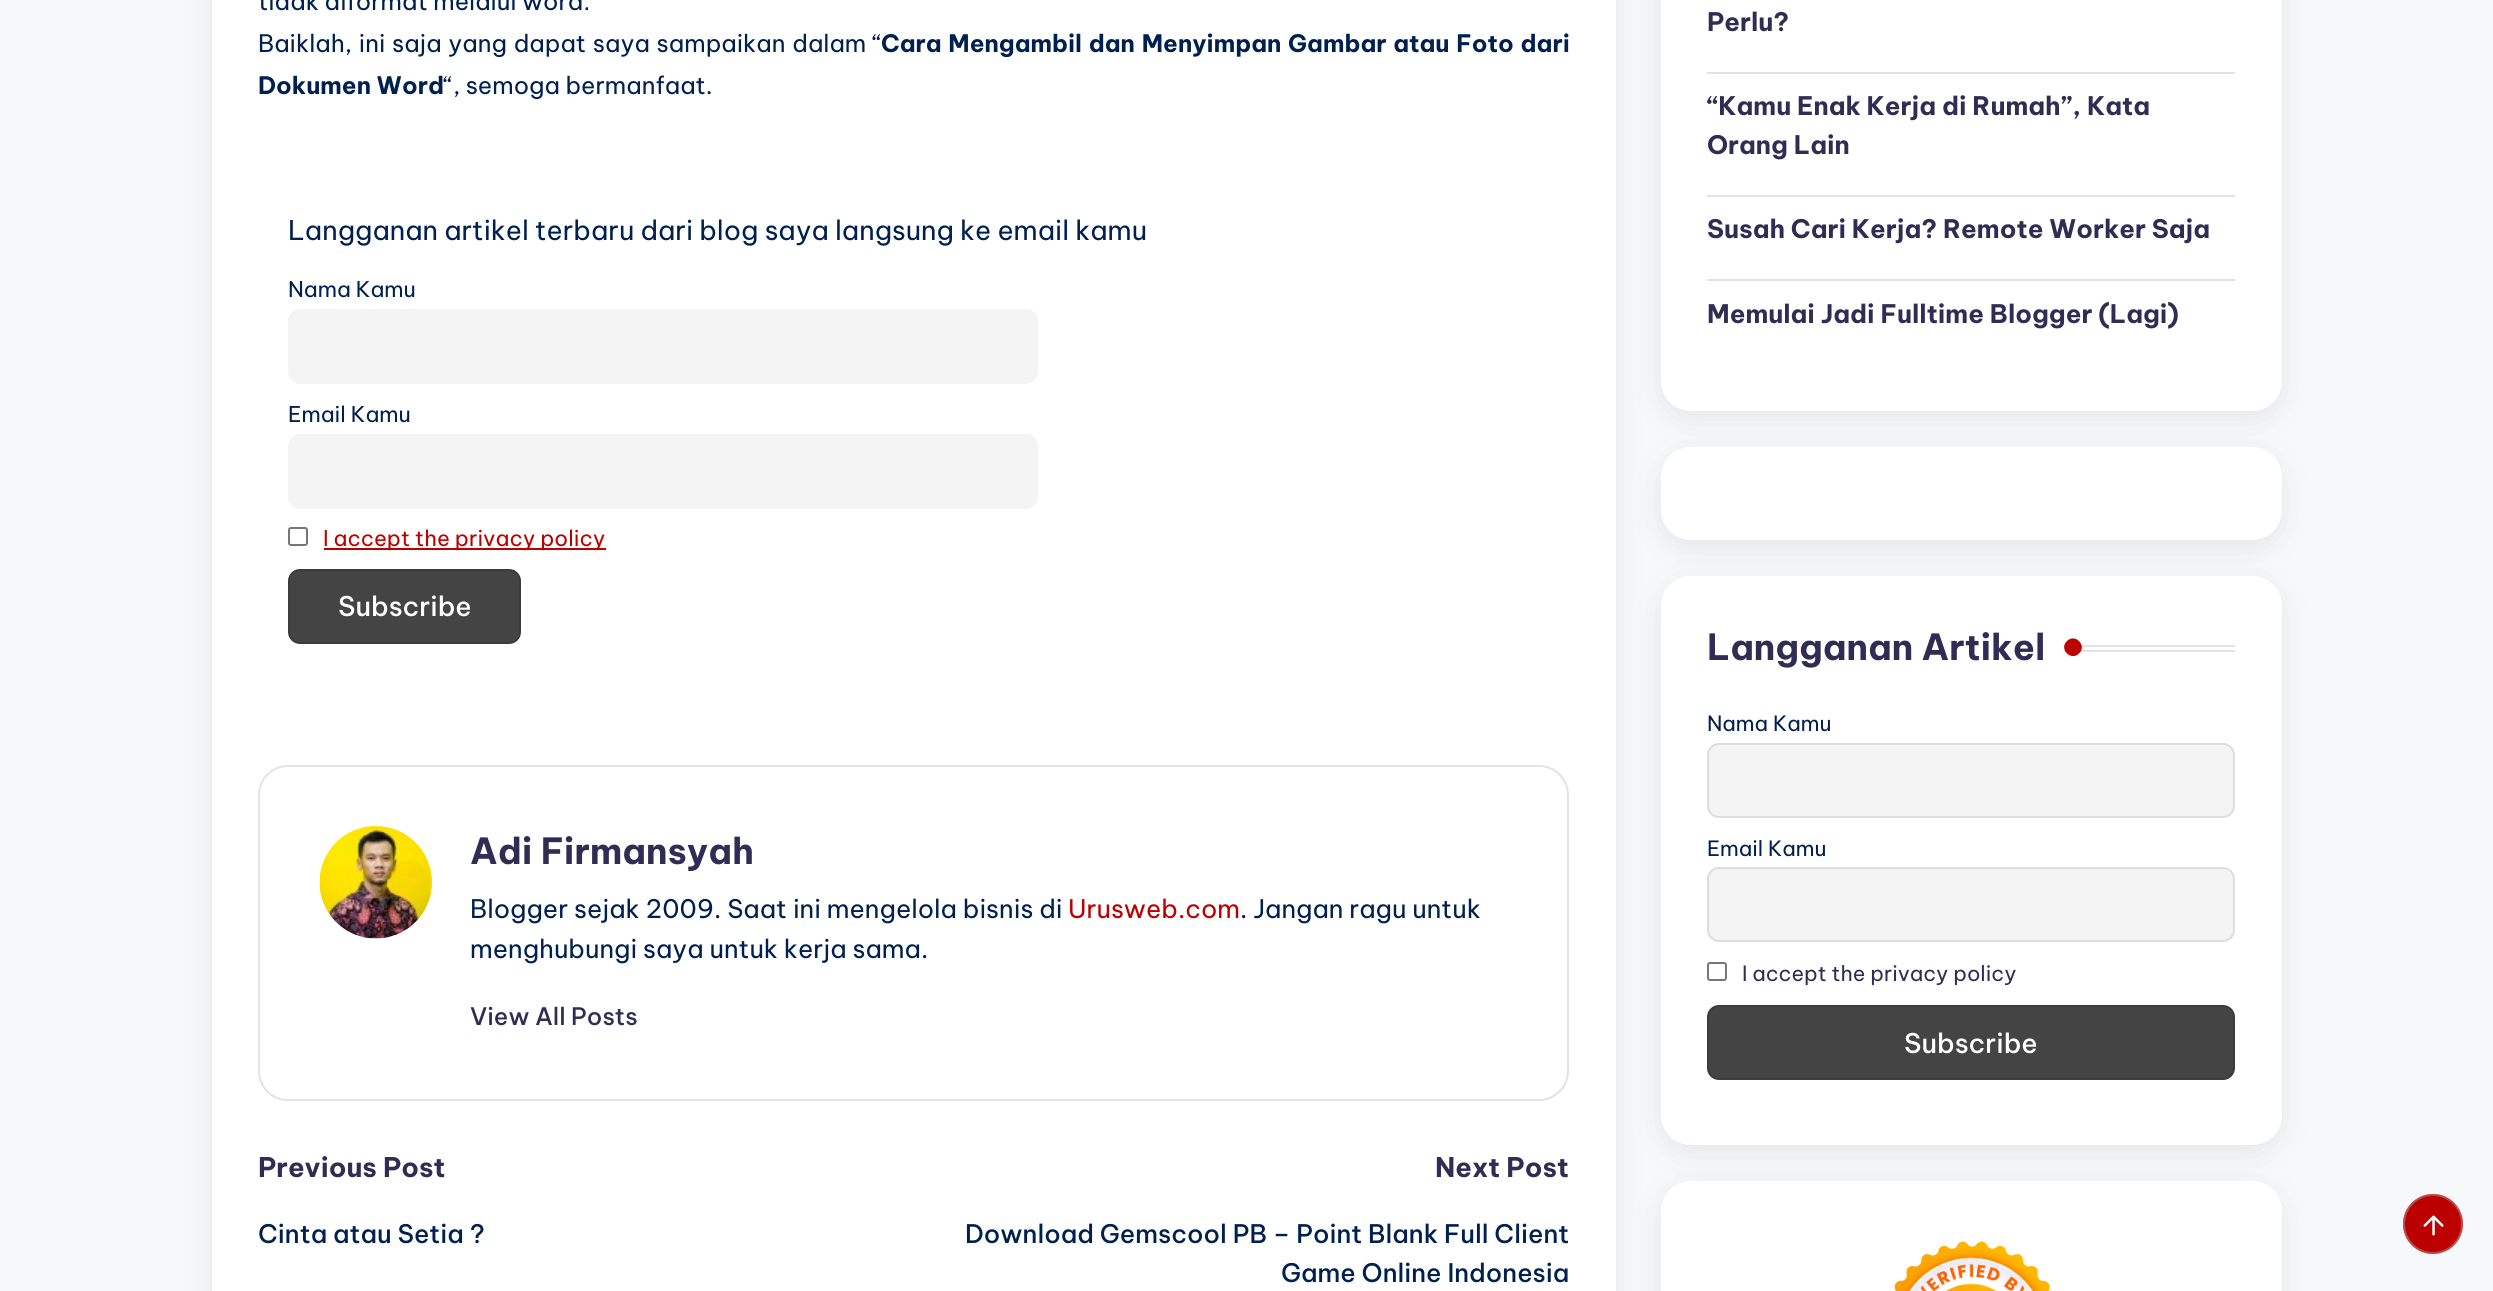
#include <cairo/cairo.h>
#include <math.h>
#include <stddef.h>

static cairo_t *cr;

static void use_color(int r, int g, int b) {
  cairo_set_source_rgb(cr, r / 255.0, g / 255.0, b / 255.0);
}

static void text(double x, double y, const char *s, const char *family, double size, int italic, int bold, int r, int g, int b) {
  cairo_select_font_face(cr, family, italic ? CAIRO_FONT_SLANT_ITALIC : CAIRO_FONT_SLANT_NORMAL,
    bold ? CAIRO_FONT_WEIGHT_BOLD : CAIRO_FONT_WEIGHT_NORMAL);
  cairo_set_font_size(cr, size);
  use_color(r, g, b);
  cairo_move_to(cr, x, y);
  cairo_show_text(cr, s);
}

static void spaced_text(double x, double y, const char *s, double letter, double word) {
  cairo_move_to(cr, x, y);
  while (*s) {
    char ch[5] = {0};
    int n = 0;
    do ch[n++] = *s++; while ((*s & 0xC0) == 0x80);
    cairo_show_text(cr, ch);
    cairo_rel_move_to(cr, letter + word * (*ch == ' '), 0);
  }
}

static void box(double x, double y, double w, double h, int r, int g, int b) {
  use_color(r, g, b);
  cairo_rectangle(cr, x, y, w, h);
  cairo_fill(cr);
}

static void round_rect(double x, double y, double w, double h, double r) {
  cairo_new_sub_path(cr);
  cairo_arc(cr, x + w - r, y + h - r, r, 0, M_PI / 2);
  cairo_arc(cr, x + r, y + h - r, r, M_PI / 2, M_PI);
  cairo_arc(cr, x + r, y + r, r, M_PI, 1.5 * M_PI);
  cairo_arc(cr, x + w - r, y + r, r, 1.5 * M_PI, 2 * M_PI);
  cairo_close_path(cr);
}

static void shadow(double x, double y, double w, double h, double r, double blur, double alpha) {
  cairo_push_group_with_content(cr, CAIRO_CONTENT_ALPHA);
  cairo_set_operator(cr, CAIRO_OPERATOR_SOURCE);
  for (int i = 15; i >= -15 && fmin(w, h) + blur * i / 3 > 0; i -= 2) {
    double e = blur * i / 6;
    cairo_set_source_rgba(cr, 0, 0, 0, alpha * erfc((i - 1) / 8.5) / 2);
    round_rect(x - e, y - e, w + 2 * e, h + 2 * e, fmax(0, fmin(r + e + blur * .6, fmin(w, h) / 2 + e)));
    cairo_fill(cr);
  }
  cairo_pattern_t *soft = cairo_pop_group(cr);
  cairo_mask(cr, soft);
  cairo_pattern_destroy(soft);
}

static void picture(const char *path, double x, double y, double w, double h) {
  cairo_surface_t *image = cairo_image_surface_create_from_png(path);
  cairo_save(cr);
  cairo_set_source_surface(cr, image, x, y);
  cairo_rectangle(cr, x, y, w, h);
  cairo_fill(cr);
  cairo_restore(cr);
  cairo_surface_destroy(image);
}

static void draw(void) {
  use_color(247, 248, 249);
  cairo_paint(cr);
  use_color(69, 67, 96);
  shadow(212, -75, 1404, 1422, 30, 15, 0.1);
  box(212, 0, 1404, 1291, 255, 255, 255);
  use_color(244, 244, 244);
  round_rect(288, 309, 750, 75, 12);
  cairo_fill(cr);
  round_rect(288, 434, 750, 75, 12);
  cairo_fill(cr);
  round_rect(289, 528, 18, 17, 2);
  use_color(118, 118, 118);
  cairo_stroke(cr);
  box(324, 548, 282, 2, 188, 0, 0);
  use_color(68, 68, 68);
  round_rect(288, 569, 233, 75, 12);
  cairo_fill(cr);
  round_rect(289, 570, 231, 73, 11);
  cairo_set_source_rgba(cr, 0, 0, 0, 0.12);
  cairo_stroke(cr);
  round_rect(259, 766, 1309, 334, 29);
  use_color(227, 227, 227);
  cairo_stroke(cr);
  picture("img_01.png", 319, 826, 113, 113);
  use_color(69, 67, 96);
  shadow(1661, -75, 621, 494, 30, 15, 0.1);
  use_color(255, 255, 255);
  round_rect(1661, -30, 621, 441, 30);
  cairo_fill(cr);
  box(1707, 72, 528, 2, 227, 227, 227);
  box(1707, 195, 528, 2, 227, 227, 227);
  box(1707, 279, 528, 2, 227, 227, 227);
  use_color(69, 67, 96);
  shadow(1661, 455, 621, 93, 30, 15, 0.1);
  use_color(255, 255, 255);
  round_rect(1661, 447, 621, 93, 30);
  cairo_fill(cr);
  use_color(69, 67, 96);
  shadow(1661, 584, 621, 568, 30, 15, 0.1);
  use_color(255, 255, 255);
  round_rect(1661, 576, 621, 569, 30);
  cairo_fill(cr);
  box(2064, 645, 171, 2, 227, 227, 227);
  box(2064, 650, 171, 2, 227, 227, 227);
  use_color(188, 0, 0);
  cairo_new_path(cr);
  cairo_move_to(cr, 2067, 641);
  cairo_curve_to(cr, 2075, 633, 2087.5, 645.5, 2079, 653.5);
  cairo_curve_to(cr, 2071, 661.5, 2058.5, 649, 2067, 641);
  cairo_close_path(cr);
  cairo_fill(cr);
  use_color(244, 244, 244);
  round_rect(1708, 744, 526, 73, 11);
  cairo_fill_preserve(cr);
  use_color(221, 221, 221);
  cairo_stroke(cr);
  use_color(244, 244, 244);
  round_rect(1708, 868, 526, 73, 11);
  cairo_fill_preserve(cr);
  use_color(221, 221, 221);
  cairo_stroke(cr);
  round_rect(1708, 963, 18, 17, 2);
  use_color(118, 118, 118);
  cairo_stroke(cr);
  use_color(68, 68, 68);
  round_rect(1707, 1005, 528, 75, 12);
  cairo_fill(cr);
  round_rect(1708, 1006, 526, 73, 11);
  cairo_set_source_rgba(cr, 0, 0, 0, 0.12);
  cairo_stroke(cr);
  use_color(69, 67, 96);
  shadow(1661, 1188, 621, 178, 30, 15, 0.1);
  use_color(255, 255, 255);
  round_rect(1661, 1181, 621, 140, 30);
  cairo_fill(cr);
  picture("img_02.png", 1894, 1241, 157, 50);
  use_color(188, 0, 0);
  cairo_arc(cr, 2433, 1224, 30, 0, 2 * M_PI);
  cairo_fill(cr);
  cairo_arc(cr, 2433, 1224, 29, 0, 2 * M_PI);
  cairo_set_source_rgba(cr, 0.725, 0.725, 0.725, 0.4);
  cairo_stroke(cr);
  picture("img_03.png", 2423, 1215, 21, 21);
  text(258, 10, "tidak diformat melalui word.", "Be Vietnam Pro", 24, 0, 0, 0, 32, 80);
  spaced_text(258, 52, "Baiklah, ini saja yang dapat saya sampaikan dalam “", 0, 1.25);
  cairo_select_font_face(cr, "Be Vietnam Pro", CAIRO_FONT_SLANT_NORMAL, CAIRO_FONT_WEIGHT_BOLD);
  spaced_text(881, 52, "Cara Mengambil dan Menyimpan Gambar atau Foto dari", 0, 1.25);
  text(258, 94, "Dokumen Word", "Be Vietnam Pro", 24, 0, 1, 0, 32, 80);
  text(444, 94, "“, semoga bermanfaat.", "Be Vietnam Pro", 24, 0, 0, 0, 32, 80);
  text(288, 240, "Langganan artikel terbaru dari blog saya langsung ke email kamu", "Be Vietnam Pro", 27, 0, 0, 0, 32, 80);
  text(288, 297, "Nama Kamu", "Be Vietnam Pro", 21.6, 0, 0, 0, 32, 80);
  text(288, 422, "Email Kamu", "Be Vietnam Pro", 21.6, 0, 0, 0, 32, 80);
  text(323, 546, "I accept the privacy policy", "Be Vietnam Pro", 21.6, 0, 0, 188, 0, 0);
  text(338, 616, "Subscribe", "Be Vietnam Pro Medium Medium", 27, 0, 0, 255, 255, 255);
  text(470, 864, "Adi Firmansyah", "Be Vietnam Pro", 36, 0, 1, 48, 45, 85);
  text(470, 918, "Blogger sejak 2009. Saat ini mengelola bisnis di", "Be Vietnam Pro", 25.5, 0, 0, 0, 32, 80);
  text(1068, 918, "Urusweb.com", "Be Vietnam Pro", 25.5, 0, 0, 188, 0, 0);
  text(1240, 918, ". Jangan ragu untuk", "Be Vietnam Pro", 25.5, 0, 0, 0, 32, 80);
  text(470, 958, "menghubungi saya untuk kerja sama.", "Be Vietnam Pro", 25.5, 0, 0, 0, 32, 80);
  text(470, 1025, "View All Posts", "Be Vietnam Pro Medium Medium", 24, 0, 0, 48, 45, 85);
  text(258, 1177, "Previous Post", "Be Vietnam Pro", 27, 0, 1, 48, 45, 85);
  text(258, 1243, "Cinta atau Setia ?", "Be Vietnam Pro Medium Medium", 25.5, 0, 0, 0, 32, 80);
  text(1435, 1177, "Next Post", "Be Vietnam Pro", 27, 0, 1, 48, 45, 85);
  text(965, 1243, "Download Gemscool PB – Point Blank Full Client", "Be Vietnam Pro Medium Medium", 25.5, 0, 0, 0, 32, 80);
  text(1281, 1282, "Game Online Indonesia", "Be Vietnam Pro Medium Medium", 25.5, 0, 0, 0, 32, 80);
  text(1707, 31, "Perlu?", "Be Vietnam Pro", 25.5, 0, 1, 48, 45, 85);
  text(1707, 115, "“Kamu Enak Kerja di Rumah”, Kata", "Be Vietnam Pro", 25.5, 0, 1, 48, 45, 85);
  text(1707, 154, "Orang Lain", "Be Vietnam Pro", 25.5, 0, 1, 48, 45, 85);
  text(1707, 238, "Susah Cari Kerja? Remote Worker Saja", "Be Vietnam Pro", 25.5, 0, 1, 48, 45, 85);
  text(1707, 323, "Memulai Jadi Fulltime Blogger (Lagi)", "Be Vietnam Pro", 25.5, 0, 1, 48, 45, 85);
  text(1707, 660, "Langganan Artikel", "Be Vietnam Pro", 36, 0, 1, 48, 45, 85);
  text(1707, 731, "Nama Kamu", "Be Vietnam Pro", 21, 0, 0, 0, 32, 80);
  text(1707, 856, "Email Kamu", "Be Vietnam Pro", 21, 0, 0, 0, 32, 80);
  text(1742, 981, "I accept the privacy policy", "Be Vietnam Pro", 21, 0, 0, 48, 45, 85);
  text(1904, 1053, "Subscribe", "Be Vietnam Pro Medium Medium", 27, 0, 0, 255, 255, 255);
}

int main(void) {
  cairo_surface_t *surface = cairo_image_surface_create(CAIRO_FORMAT_RGB24, 2493, 1291);
  cr = cairo_create(surface);
  cairo_font_options_t *options = cairo_font_options_create();
  cairo_font_options_set_hint_metrics(options, CAIRO_HINT_METRICS_OFF);
  cairo_font_options_set_hint_style(options, CAIRO_HINT_STYLE_NONE);
  cairo_set_font_options(cr, options);
  cairo_set_miter_limit(cr, 4);
  draw();
  cairo_surface_write_to_png(surface, "out.png");
  cairo_font_options_destroy(options);
  cairo_destroy(cr);
  cairo_surface_destroy(surface);
  return 0;
}
